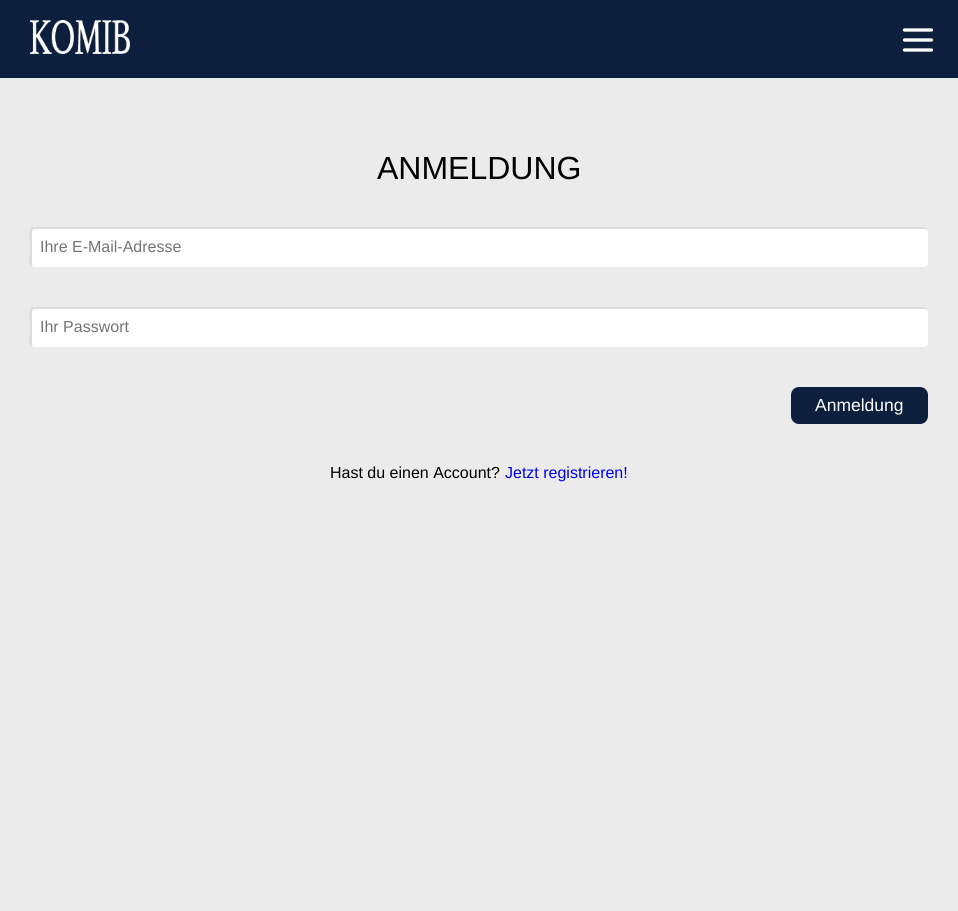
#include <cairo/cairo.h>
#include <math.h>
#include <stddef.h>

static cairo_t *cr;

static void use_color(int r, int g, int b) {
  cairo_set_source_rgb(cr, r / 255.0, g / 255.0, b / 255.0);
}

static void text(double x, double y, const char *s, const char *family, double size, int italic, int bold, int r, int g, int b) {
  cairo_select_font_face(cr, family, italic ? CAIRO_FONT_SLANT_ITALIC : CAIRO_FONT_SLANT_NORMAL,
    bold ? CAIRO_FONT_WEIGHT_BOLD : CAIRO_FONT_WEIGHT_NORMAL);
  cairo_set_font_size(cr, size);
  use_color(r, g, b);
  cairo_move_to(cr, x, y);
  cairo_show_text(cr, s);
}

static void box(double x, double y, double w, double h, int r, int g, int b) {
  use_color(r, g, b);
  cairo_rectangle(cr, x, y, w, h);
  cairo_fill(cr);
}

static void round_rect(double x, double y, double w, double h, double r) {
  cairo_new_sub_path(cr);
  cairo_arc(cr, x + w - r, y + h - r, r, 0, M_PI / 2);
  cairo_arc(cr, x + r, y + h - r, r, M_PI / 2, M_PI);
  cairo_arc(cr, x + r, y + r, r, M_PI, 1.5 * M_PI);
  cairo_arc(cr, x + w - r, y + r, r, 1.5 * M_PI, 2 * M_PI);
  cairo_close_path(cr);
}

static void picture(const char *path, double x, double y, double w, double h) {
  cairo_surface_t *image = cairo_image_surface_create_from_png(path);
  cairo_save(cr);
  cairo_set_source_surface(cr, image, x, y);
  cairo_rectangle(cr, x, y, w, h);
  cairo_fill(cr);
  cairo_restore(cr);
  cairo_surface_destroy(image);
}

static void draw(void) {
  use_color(236, 235, 236);
  cairo_paint(cr);
  box(0, 0, 958, 78, 12, 31, 61);
  picture("img_01.png", 30, 20, 100, 34);
  cairo_new_path(cr);
  cairo_move_to(cr, 904.5, 30);
  cairo_line_to(cr, 931.5, 30);
  cairo_move_to(cr, 904.5, 40);
  cairo_line_to(cr, 931.5, 40);
  cairo_move_to(cr, 904.5, 50);
  cairo_line_to(cr, 931.5, 50);
  use_color(255, 255, 255);
  cairo_set_line_width(cr, 3.3);
  cairo_set_line_cap(cr, CAIRO_LINE_CAP_ROUND);
  cairo_set_line_join(cr, CAIRO_LINE_JOIN_ROUND);
  cairo_stroke(cr);
  round_rect(30, 227, 898, 40, 4);
  cairo_fill(cr);
  cairo_set_source_rgba(cr, 0.631, 0.631, 0.631, 0.36);
  cairo_new_path(cr);
  cairo_move_to(cr, 35, 229);
  cairo_line_to(cr, 925, 229);
  cairo_curve_to(cr, 927, 229, 928, 230, 928, 232);
  cairo_curve_to(cr, 928, 229, 927, 227, 924, 227);
  cairo_line_to(cr, 32, 227);
  cairo_curve_to(cr, 28, 229, 30, 238, 30, 242);
  cairo_line_to(cr, 30, 252);
  cairo_curve_to(cr, 30, 257, 27, 267, 35, 267);
  cairo_curve_to(cr, 33, 267, 32, 266, 32, 264);
  cairo_line_to(cr, 32, 232);
  cairo_curve_to(cr, 32, 230, 33, 229, 35, 229);
  cairo_close_path(cr);
  cairo_fill(cr);
  use_color(255, 255, 255);
  round_rect(30, 307, 898, 40, 4);
  cairo_fill(cr);
  cairo_set_source_rgba(cr, 0.631, 0.631, 0.631, 0.36);
  cairo_new_path(cr);
  cairo_move_to(cr, 35, 309);
  cairo_line_to(cr, 925, 309);
  cairo_curve_to(cr, 927, 309, 928, 310, 928, 312);
  cairo_curve_to(cr, 928, 309, 927, 307, 924, 307);
  cairo_line_to(cr, 32, 307);
  cairo_curve_to(cr, 28, 309, 30, 318, 30, 322);
  cairo_line_to(cr, 30, 332);
  cairo_curve_to(cr, 30, 337, 27, 347, 35, 347);
  cairo_curve_to(cr, 33, 347, 32, 346, 32, 344);
  cairo_line_to(cr, 32, 312);
  cairo_curve_to(cr, 32, 310, 33, 309, 35, 309);
  cairo_close_path(cr);
  cairo_fill(cr);
  use_color(12, 31, 61);
  round_rect(791, 387, 137, 37, 8);
  cairo_fill(cr);
  text(377, 179, "ANMELDUNG", "Liberation Sans", 32, 0, 0, 0, 0, 0);
  text(40, 252, "Ihre E-Mail-Adresse", "Liberation Sans", 16, 0, 0, 117, 117, 117);
  text(40, 332, "Ihr Passwort", "Liberation Sans", 16, 0, 0, 117, 117, 117);
  text(815, 411, "Anmeldung", "Liberation Sans", 17.5, 0, 0, 255, 255, 255);
  text(330, 478, "Hast du einen Account?", "Liberation Sans", 16, 0, 0, 0, 0, 0);
  text(505, 478, "Jetzt registrieren!", "Liberation Sans", 16, 0, 0, 0, 0, 238);
}

int main(void) {
  cairo_surface_t *surface = cairo_image_surface_create(CAIRO_FORMAT_RGB24, 958, 911);
  cr = cairo_create(surface);
  cairo_font_options_t *options = cairo_font_options_create();
  cairo_font_options_set_hint_metrics(options, CAIRO_HINT_METRICS_OFF);
  cairo_font_options_set_hint_style(options, CAIRO_HINT_STYLE_NONE);
  cairo_set_font_options(cr, options);
  cairo_set_miter_limit(cr, 4);
  draw();
  cairo_surface_write_to_png(surface, "out.png");
  cairo_font_options_destroy(options);
  cairo_destroy(cr);
  cairo_surface_destroy(surface);
  return 0;
}
